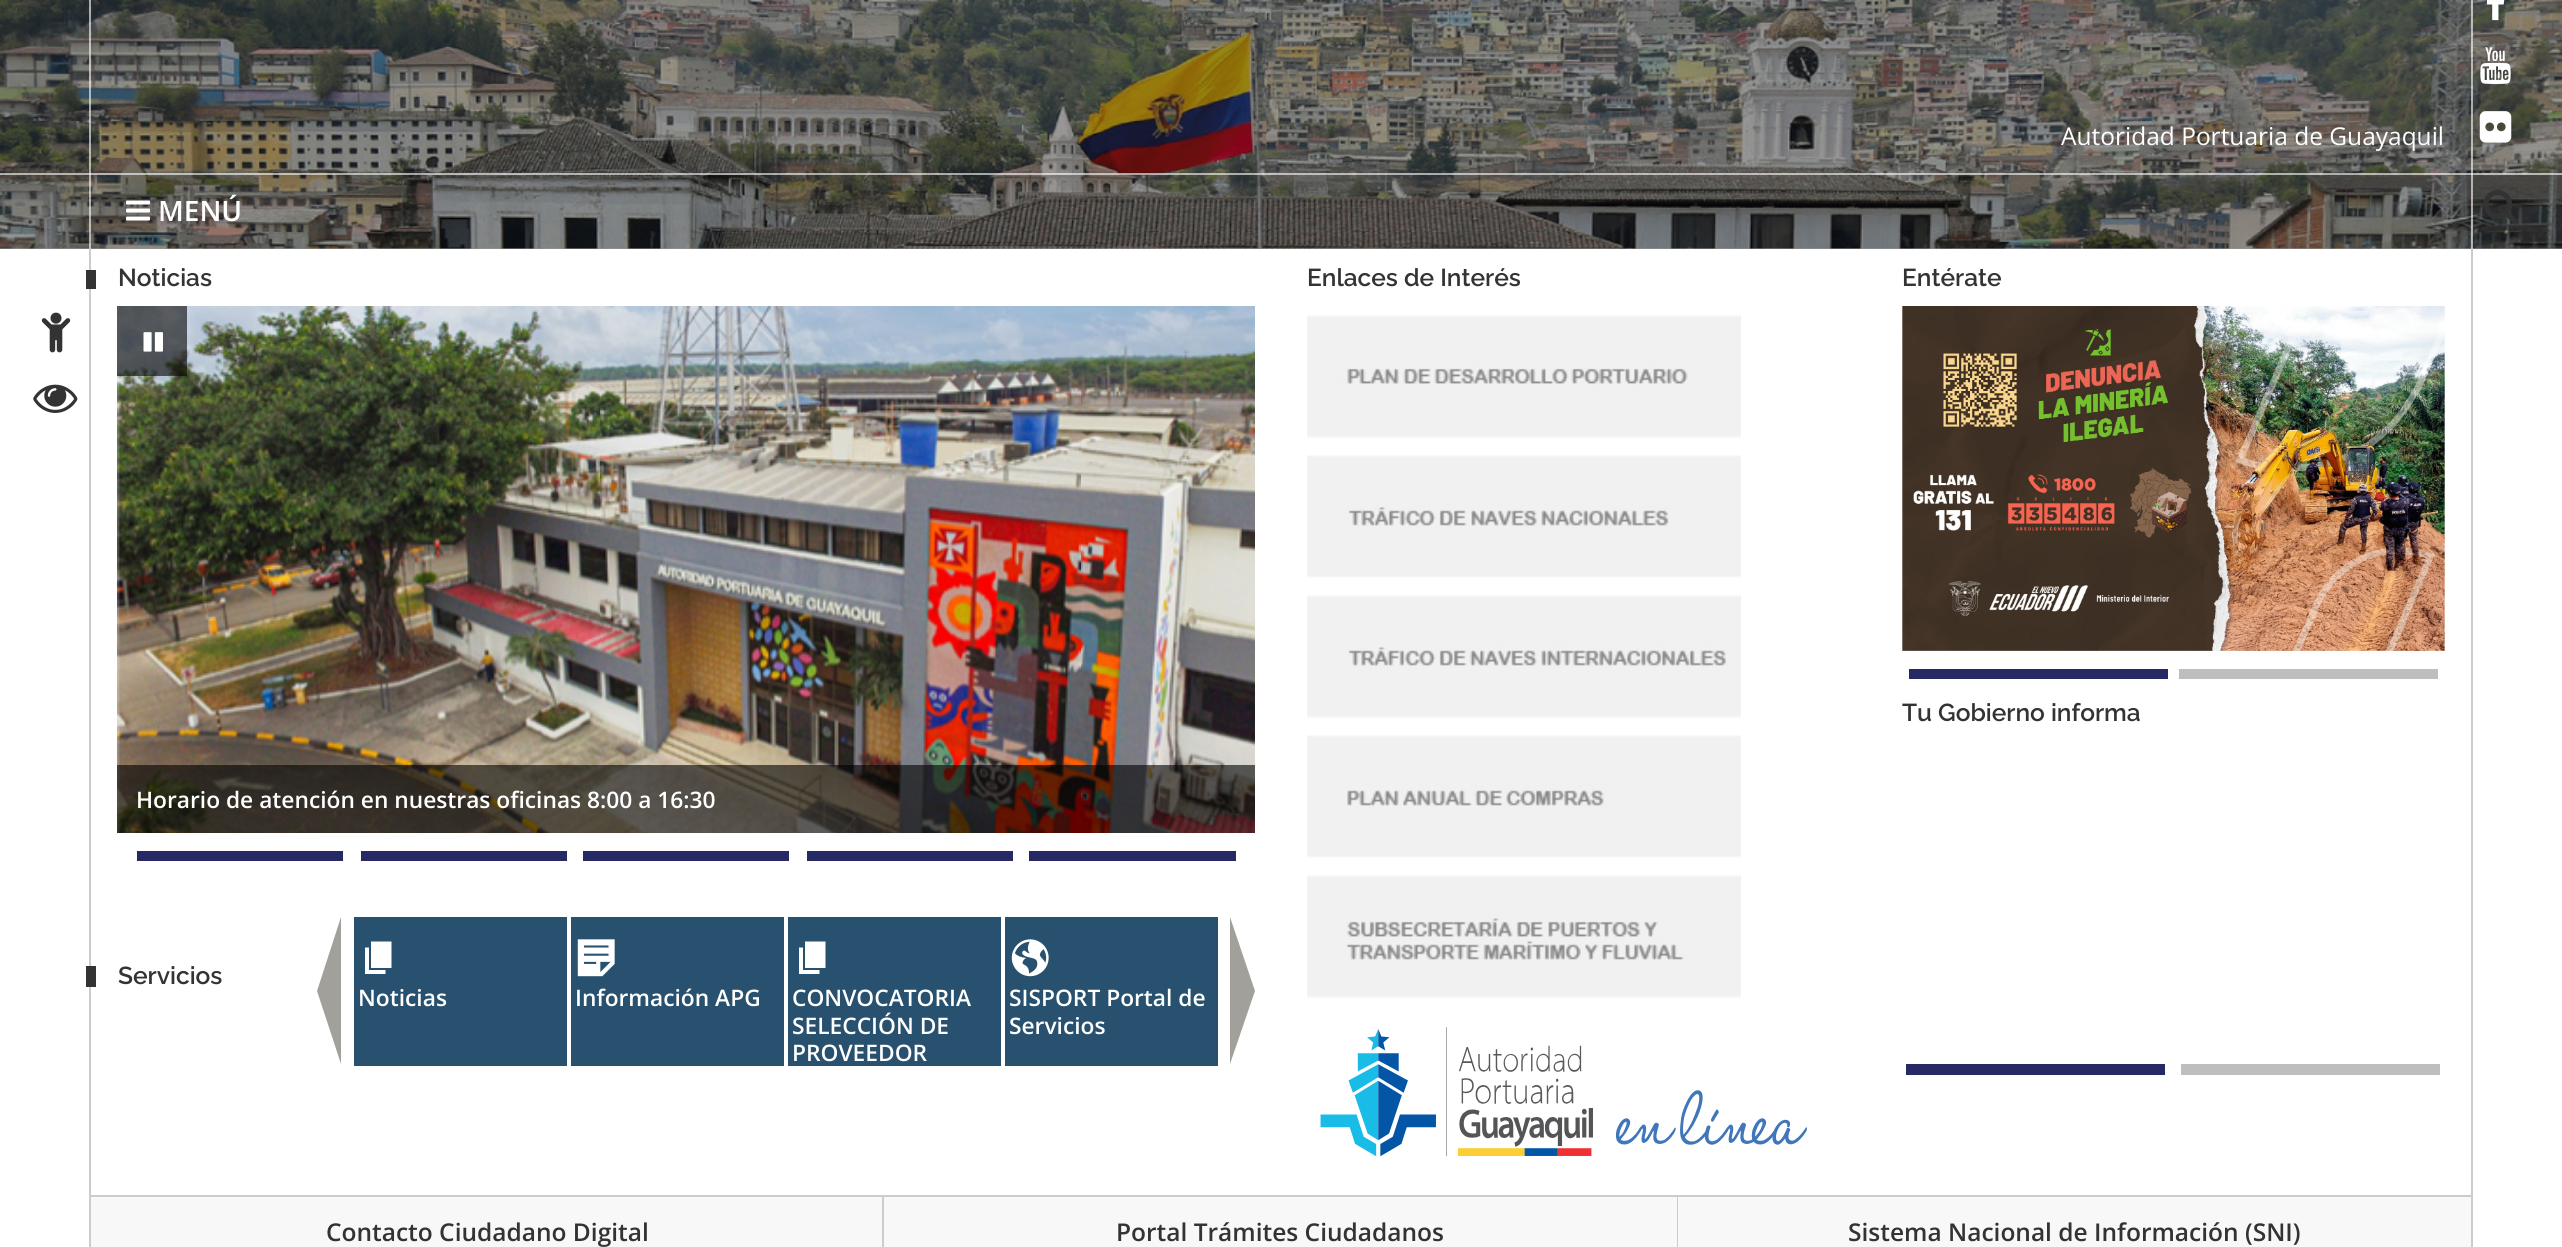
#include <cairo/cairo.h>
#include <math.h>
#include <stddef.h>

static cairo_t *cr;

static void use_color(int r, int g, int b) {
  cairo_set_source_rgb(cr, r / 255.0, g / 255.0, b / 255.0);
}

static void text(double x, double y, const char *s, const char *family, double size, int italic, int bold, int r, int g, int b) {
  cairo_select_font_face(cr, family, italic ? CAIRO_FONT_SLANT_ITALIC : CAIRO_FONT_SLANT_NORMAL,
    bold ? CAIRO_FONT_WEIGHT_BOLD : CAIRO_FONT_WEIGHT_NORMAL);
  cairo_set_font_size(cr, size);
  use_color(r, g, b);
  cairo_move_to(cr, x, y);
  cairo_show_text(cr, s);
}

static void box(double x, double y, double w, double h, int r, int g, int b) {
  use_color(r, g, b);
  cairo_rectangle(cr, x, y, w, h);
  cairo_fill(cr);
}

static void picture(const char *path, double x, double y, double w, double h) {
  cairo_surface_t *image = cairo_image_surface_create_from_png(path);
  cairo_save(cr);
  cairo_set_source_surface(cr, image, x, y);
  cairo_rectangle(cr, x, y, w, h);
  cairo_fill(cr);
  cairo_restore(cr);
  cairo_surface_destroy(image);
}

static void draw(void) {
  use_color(255, 255, 255);
  cairo_paint(cr);
  box(0, 248, 2562, 1, 153, 153, 153);
  picture("img_01.png", 0, 0, 2562, 249);
  cairo_set_source_rgba(cr, 1, 1, 1, 0.6);
  cairo_rectangle(cr, 2471, 0, 2, 249);
  cairo_fill(cr);
  cairo_rectangle(cr, 89, 0, 2, 249);
  cairo_fill(cr);
  picture("img_02.png", 2486, 0, 19, 21);
  picture("img_03.png", 2480, 47, 31, 37);
  picture("img_04.png", 2479, 111, 33, 32);
  cairo_rectangle(cr, 0, 173, 2562, 2);
  cairo_fill(cr);
  picture("img_05.png", 126, 200, 24, 21);
  picture("img_06.png", 2483, 190, 34, 33);
  picture("img_07.png", 41, 312, 30, 41);
  picture("img_08.png", 33, 384, 45, 29);
  box(89, 249, 2, 998, 204, 204, 204);
  box(86, 270, 10, 19, 51, 51, 51);
  picture("img_10.png", 117, 306, 1138, 527);
  cairo_set_source_rgba(cr, 0, 0, 0, 0.6);
  cairo_rectangle(cr, 117, 306, 70, 70);
  cairo_fill(cr);
  picture("img_09.png", 143, 332, 20, 20);
  cairo_rectangle(cr, 117, 765, 1138, 68);
  cairo_fill(cr);
  box(137, 851, 206, 10, 39, 41, 101);
  box(361, 851, 206, 10, 39, 41, 101);
  box(583, 851, 206, 10, 39, 41, 101);
  box(807, 851, 206, 10, 39, 41, 101);
  box(1029, 851, 207, 10, 39, 41, 101);
  box(86, 966, 10, 21, 51, 51, 51);
  use_color(162, 160, 155);
  cairo_new_path(cr);
  cairo_move_to(cr, 341, 1064);
  cairo_line_to(cr, 341, 917);
  cairo_line_to(cr, 317, 991);
  cairo_close_path(cr);
  cairo_fill(cr);
  cairo_new_path(cr);
  cairo_move_to(cr, 1230, 1064);
  cairo_line_to(cr, 1230, 917);
  cairo_line_to(cr, 1255, 991);
  cairo_close_path(cr);
  cairo_fill(cr);
  box(354, 917, 213, 149, 39, 81, 110);
  use_color(255, 255, 255);
  cairo_new_path(cr);
  cairo_move_to(cr, 371, 968);
  cairo_line_to(cr, 371, 941.5);
  cairo_line_to(cr, 391.5, 941.5);
  cairo_line_to(cr, 391.5, 968);
  cairo_close_path(cr);
  cairo_move_to(cr, 369, 970);
  cairo_line_to(cr, 385.5, 970);
  cairo_line_to(cr, 385.5, 974);
  cairo_line_to(cr, 365, 974);
  cairo_line_to(cr, 365, 947.5);
  cairo_line_to(cr, 369, 947.5);
  cairo_close_path(cr);
  cairo_fill(cr);
  box(571, 917, 213, 149, 39, 81, 110);
  picture("img_11.png", 577, 939, 38, 38);
  box(788, 917, 213, 149, 39, 81, 110);
  use_color(255, 255, 255);
  cairo_new_path(cr);
  cairo_move_to(cr, 805, 968);
  cairo_line_to(cr, 805, 941.5);
  cairo_line_to(cr, 825.5, 941.5);
  cairo_line_to(cr, 825.5, 968);
  cairo_close_path(cr);
  cairo_move_to(cr, 803, 970);
  cairo_line_to(cr, 819.5, 970);
  cairo_line_to(cr, 819.5, 974);
  cairo_line_to(cr, 799, 974);
  cairo_line_to(cr, 799, 947.5);
  cairo_line_to(cr, 803, 947.5);
  cairo_close_path(cr);
  cairo_fill(cr);
  box(1005, 917, 213, 149, 39, 81, 110);
  picture("img_12.png", 1011, 939, 38, 38);
  picture("img_13.png", 1307, 315, 434, 123);
  picture("img_14.png", 1307, 455, 434, 123);
  picture("img_15.png", 1307, 595, 434, 123);
  picture("img_16.png", 1307, 735, 434, 123);
  picture("img_17.png", 1307, 875, 434, 123);
  picture("img_18.png", 1320, 1027, 487, 130);
  picture("img_19.png", 1902, 306, 543, 345);
  box(1909, 669, 259, 10, 39, 41, 101);
  box(2179, 669, 259, 10, 190, 190, 190);
  box(1906, 1064, 259, 11, 39, 41, 101);
  box(2181, 1064, 259, 11, 190, 190, 190);
  box(2471, 249, 2, 998, 204, 204, 204);
  box(91, 1195, 2380, 2, 204, 204, 204);
  box(882, 1197, 2, 50, 204, 204, 204);
  box(91, 1197, 791, 50, 248, 248, 248);
  box(1677, 1197, 1, 50, 204, 204, 204);
  box(884, 1197, 793, 50, 248, 248, 248);
  box(1678, 1197, 793, 50, 248, 248, 248);
  text(2061, 145, "Autoridad Portuaria de Guayaquil", "Open Sans", 24.5, 0, 0, 255, 255, 255);
  text(158, 221, "MENÚ", "Open Sans SemiBold", 28, 0, 0, 255, 255, 255);
  text(118, 286, "Noticias", "Raleway Thin", 24.5, 0, 0, 51, 51, 51);
  text(136, 808, "Horario de atención en nuestras oficinas 8:00 a 16:30", "Open Sans SemiBold", 22.75, 0, 0, 255, 255, 255);
  text(118, 984, "Servicios", "Raleway Thin", 24.5, 0, 0, 51, 51, 51);
  text(358, 1006, "Noticias", "Open Sans SemiBold", 22.75, 0, 0, 255, 255, 255);
  text(575, 1006, "Información APG", "Open Sans SemiBold", 22.75, 0, 0, 255, 255, 255);
  text(792, 1006, "CONVOCATORIA", "Open Sans SemiBold", 22.75, 0, 0, 255, 255, 255);
  text(792, 1034, "SELECCIÓN DE", "Open Sans SemiBold", 22.75, 0, 0, 255, 255, 255);
  text(792, 1061, "PROVEEDOR", "Open Sans SemiBold", 22.75, 0, 0, 255, 255, 255);
  text(1009, 1006, "SISPORT Portal de", "Open Sans SemiBold", 22.75, 0, 0, 255, 255, 255);
  text(1009, 1034, "Servicios", "Open Sans SemiBold", 22.75, 0, 0, 255, 255, 255);
  text(1307, 286, "Enlaces de Interés", "Raleway Thin", 24.5, 0, 0, 51, 51, 51);
  text(1902, 286, "Entérate", "Raleway Thin", 24.5, 0, 0, 51, 51, 51);
  text(1902, 721, "Tu Gobierno informa", "Raleway Thin", 24.5, 0, 0, 51, 51, 51);
  text(326, 1241, "Contacto Ciudadano Digital", "Open Sans SemiBold", 24.5, 0, 0, 51, 51, 51);
  text(1116, 1241, "Portal Trámites Ciudadanos", "Open Sans SemiBold", 24.5, 0, 0, 51, 51, 51);
  text(1848, 1241, "Sistema Nacional de Información (SNI)", "Open Sans SemiBold", 24.5, 0, 0, 51, 51, 51);
}

int main(void) {
  cairo_surface_t *surface = cairo_image_surface_create(CAIRO_FORMAT_RGB24, 2562, 1247);
  cr = cairo_create(surface);
  cairo_font_options_t *options = cairo_font_options_create();
  cairo_font_options_set_hint_metrics(options, CAIRO_HINT_METRICS_OFF);
  cairo_font_options_set_hint_style(options, CAIRO_HINT_STYLE_NONE);
  cairo_set_font_options(cr, options);
  cairo_set_miter_limit(cr, 4);
  draw();
  cairo_surface_write_to_png(surface, "out.png");
  cairo_font_options_destroy(options);
  cairo_destroy(cr);
  cairo_surface_destroy(surface);
  return 0;
}
